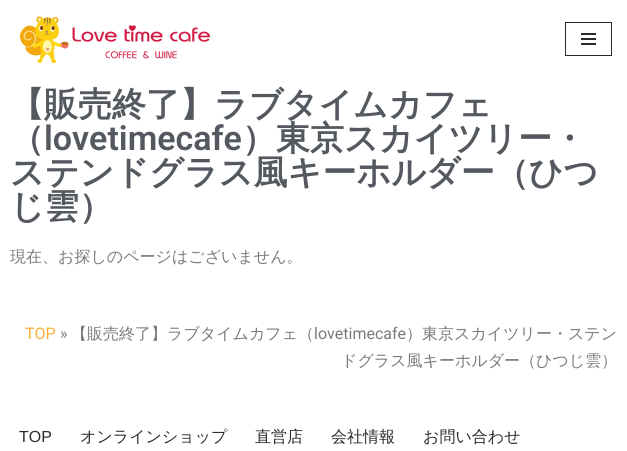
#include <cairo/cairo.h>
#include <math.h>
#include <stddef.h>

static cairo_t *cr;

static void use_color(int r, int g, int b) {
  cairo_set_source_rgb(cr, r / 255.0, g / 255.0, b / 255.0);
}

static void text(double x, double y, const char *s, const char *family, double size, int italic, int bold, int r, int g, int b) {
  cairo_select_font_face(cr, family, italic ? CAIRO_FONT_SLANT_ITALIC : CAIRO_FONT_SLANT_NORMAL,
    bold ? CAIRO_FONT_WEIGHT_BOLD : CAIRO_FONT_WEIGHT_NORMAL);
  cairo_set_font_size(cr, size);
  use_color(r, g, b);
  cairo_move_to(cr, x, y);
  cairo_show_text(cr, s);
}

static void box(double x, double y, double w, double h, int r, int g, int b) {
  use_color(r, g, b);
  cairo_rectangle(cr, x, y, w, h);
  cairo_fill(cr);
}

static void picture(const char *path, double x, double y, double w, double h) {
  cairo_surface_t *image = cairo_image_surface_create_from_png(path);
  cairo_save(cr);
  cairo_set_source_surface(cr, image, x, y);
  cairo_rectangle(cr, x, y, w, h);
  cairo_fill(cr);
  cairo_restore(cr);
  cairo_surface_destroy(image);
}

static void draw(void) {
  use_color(255, 255, 255);
  cairo_paint(cr);
  picture("img_01.png", 19, 16, 192, 47);
  cairo_rectangle(cr, 565.5, 22.5, 46, 33);
  use_color(43, 43, 43);
  cairo_set_line_width(cr, 1);
  cairo_stroke(cr);
  box(581, 33, 15, 2, 43, 43, 43);
  box(581, 38, 15, 2, 43, 43, 43);
  box(581, 43, 15, 2, 43, 43, 43);
  text(10, 116, "【販売終了】ラブタイムカフェ", "WenQuanYi Zen Hei", 34, 0, 1, 84, 89, 95);
  text(10, 150, "（", "WenQuanYi Zen Hei", 34, 0, 1, 84, 89, 95);
  text(44, 150, "lovetimecafe", "Roboto SemiBold", 34, 0, 0, 84, 89, 95);
  text(242, 150, "）東京スカイツリー・", "WenQuanYi Zen Hei", 34, 0, 1, 84, 89, 95);
  text(10, 184, "ステンドグラス風キーホルダー（ひつ", "WenQuanYi Zen Hei", 34, 0, 1, 84, 89, 95);
  text(10, 218, "じ雲）", "WenQuanYi Zen Hei", 34, 0, 1, 84, 89, 95);
  text(10, 262, "現在、お探しのページはございません。", "WenQuanYi Zen Hei Medium", 16, 0, 0, 122, 122, 122);
  text(25, 339, "TOP", "Roboto", 16, 0, 0, 252, 175, 59);
  text(60, 339, "»", "Roboto", 16, 0, 0, 122, 122, 122);
  text(71, 339, "【販売終了】ラブタイムカフェ（", "WenQuanYi Zen Hei Medium", 16, 0, 0, 122, 122, 122);
  text(314, 339, "lovetimecafe", "Roboto", 16, 0, 0, 122, 122, 122);
  text(406, 339, "）東京スカイツリー・ステン", "WenQuanYi Zen Hei Medium", 16, 0, 0, 122, 122, 122);
  text(341, 366, "ドグラス風キーホルダー（ひつじ雲）", "WenQuanYi Zen Hei Medium", 16, 0, 0, 122, 122, 122);
  text(19, 442, "TOP", "Liberation Sans", 16, 0, 0, 43, 43, 43);
  text(80, 442, "オンラインショップ", "WenQuanYi Zen Hei Medium", 16, 0, 0, 43, 43, 43);
  text(255, 442, "直営店", "WenQuanYi Zen Hei Medium", 16, 0, 0, 43, 43, 43);
  text(331, 442, "会社情報", "WenQuanYi Zen Hei Medium", 16, 0, 0, 43, 43, 43);
  text(423, 442, "お問い合わせ", "WenQuanYi Zen Hei Medium", 16, 0, 0, 43, 43, 43);
}

int main(void) {
  cairo_surface_t *surface = cairo_image_surface_create(CAIRO_FORMAT_RGB24, 627, 451);
  cr = cairo_create(surface);
  cairo_font_options_t *options = cairo_font_options_create();
  cairo_font_options_set_hint_metrics(options, CAIRO_HINT_METRICS_OFF);
  cairo_font_options_set_hint_style(options, CAIRO_HINT_STYLE_NONE);
  cairo_set_font_options(cr, options);
  cairo_set_miter_limit(cr, 4);
  draw();
  cairo_surface_write_to_png(surface, "out.png");
  cairo_font_options_destroy(options);
  cairo_destroy(cr);
  cairo_surface_destroy(surface);
  return 0;
}
